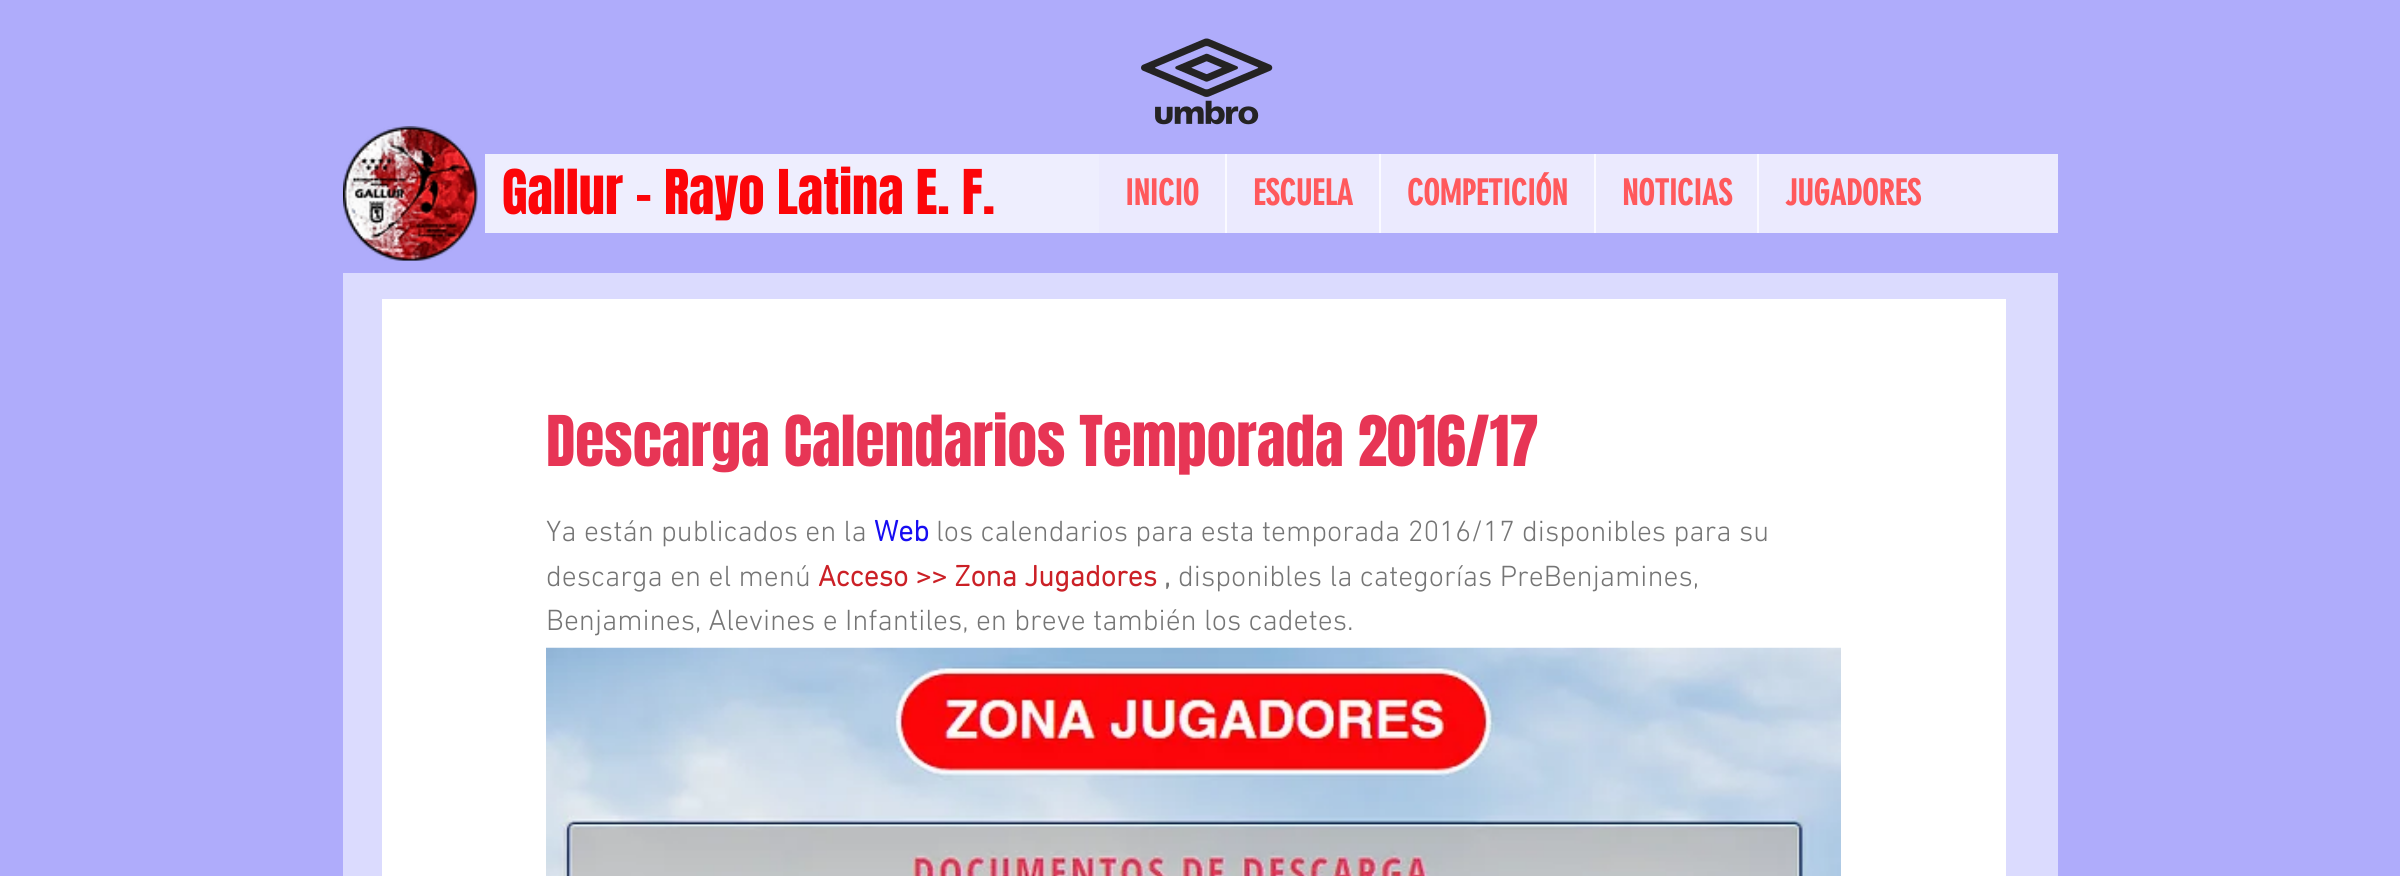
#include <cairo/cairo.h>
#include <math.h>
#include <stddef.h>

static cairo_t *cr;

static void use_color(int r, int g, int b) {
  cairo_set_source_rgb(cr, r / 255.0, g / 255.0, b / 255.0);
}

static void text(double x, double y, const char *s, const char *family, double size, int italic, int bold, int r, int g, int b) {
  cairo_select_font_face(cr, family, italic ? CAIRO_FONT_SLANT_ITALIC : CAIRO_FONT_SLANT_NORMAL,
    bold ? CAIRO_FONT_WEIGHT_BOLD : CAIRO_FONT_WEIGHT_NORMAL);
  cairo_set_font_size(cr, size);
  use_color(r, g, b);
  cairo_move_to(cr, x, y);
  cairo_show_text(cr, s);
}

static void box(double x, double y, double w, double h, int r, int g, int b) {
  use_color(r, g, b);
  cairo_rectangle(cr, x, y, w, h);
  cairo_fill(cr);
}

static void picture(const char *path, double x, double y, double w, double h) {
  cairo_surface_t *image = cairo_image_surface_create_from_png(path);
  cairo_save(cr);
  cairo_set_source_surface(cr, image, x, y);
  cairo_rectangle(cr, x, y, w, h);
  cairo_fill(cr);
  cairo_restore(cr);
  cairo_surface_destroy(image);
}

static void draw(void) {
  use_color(175, 172, 251);
  cairo_paint(cr);
  picture("img_01.png", 1141, 38, 132, 87);
  picture("img_02.png", 343, 126, 135, 135);
  box(485, 154, 614, 79, 238, 238, 254);
  box(1099, 154, 959, 79, 235, 234, 254);
  box(1225, 154, 2, 79, 250, 250, 255);
  box(1379, 154, 2, 79, 250, 250, 255);
  box(1594, 154, 2, 79, 250, 250, 255);
  box(1757, 154, 2, 79, 250, 250, 255);
  box(343, 273, 1715, 603, 219, 219, 254);
  box(382, 299, 1624, 577, 255, 255, 255);
  picture("img_03.png", 546, 647, 1295, 229);
  text(502, 214, "Gallur - Rayo Latina E. F.", "Anton", 52.5, 0, 0, 252, 5, 9);
  text(1125, 205, "INICIO", "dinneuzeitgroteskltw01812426", 35, 0, 1, 255, 89, 92);
  text(1253, 205, "ESCUELA", "dinneuzeitgroteskltw01812426", 35, 0, 1, 255, 89, 92);
  text(1407, 205, "COMPETICIÓN", "dinneuzeitgroteskltw01812426", 35, 0, 1, 255, 89, 92);
  text(1622, 205, "NOTICIAS", "dinneuzeitgroteskltw01812426", 35, 0, 1, 255, 89, 92);
  text(1785, 205, "JUGADORES", "dinneuzeitgroteskltw01812426", 35, 0, 1, 255, 89, 92);
  text(546, 466, "Descarga Calendarios Temporada 2016/17", "Anton", 59.5, 0, 0, 231, 53, 85);
  text(546, 541, "Ya están publicados en la", "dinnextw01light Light", 29.75, 0, 0, 117, 117, 117);
  text(874, 541, "Web", "dinnextw01light", 29.75, 0, 1, 23, 13, 242);
  text(936, 541, "los calendarios para esta temporada 2016/17 disponibles para su", "dinnextw01light Light", 29.75, 0, 0, 117, 117, 117);
  text(546, 586, "descarga en el menú", "dinnextw01light Light", 29.75, 0, 0, 117, 117, 117);
  text(818, 586, "Acceso >> Zona Jugadores", "dinnextw01light", 29.75, 0, 1, 203, 32, 38);
  text(1164, 586, ",", "dinnextw01light", 29.75, 0, 1, 117, 117, 117);
  text(1178, 586, "disponibles la categorías PreBenjamines,", "dinnextw01light Light", 29.75, 0, 0, 117, 117, 117);
  text(546, 630, "Benjamines, Alevines e Infantiles, en breve también los cadetes.", "dinnextw01light Light", 29.75, 0, 0, 117, 117, 117);
}

int main(void) {
  cairo_surface_t *surface = cairo_image_surface_create(CAIRO_FORMAT_RGB24, 2400, 876);
  cr = cairo_create(surface);
  cairo_font_options_t *options = cairo_font_options_create();
  cairo_font_options_set_hint_metrics(options, CAIRO_HINT_METRICS_OFF);
  cairo_font_options_set_hint_style(options, CAIRO_HINT_STYLE_NONE);
  cairo_set_font_options(cr, options);
  cairo_set_miter_limit(cr, 4);
  draw();
  cairo_surface_write_to_png(surface, "out.png");
  cairo_font_options_destroy(options);
  cairo_destroy(cr);
  cairo_surface_destroy(surface);
  return 0;
}
